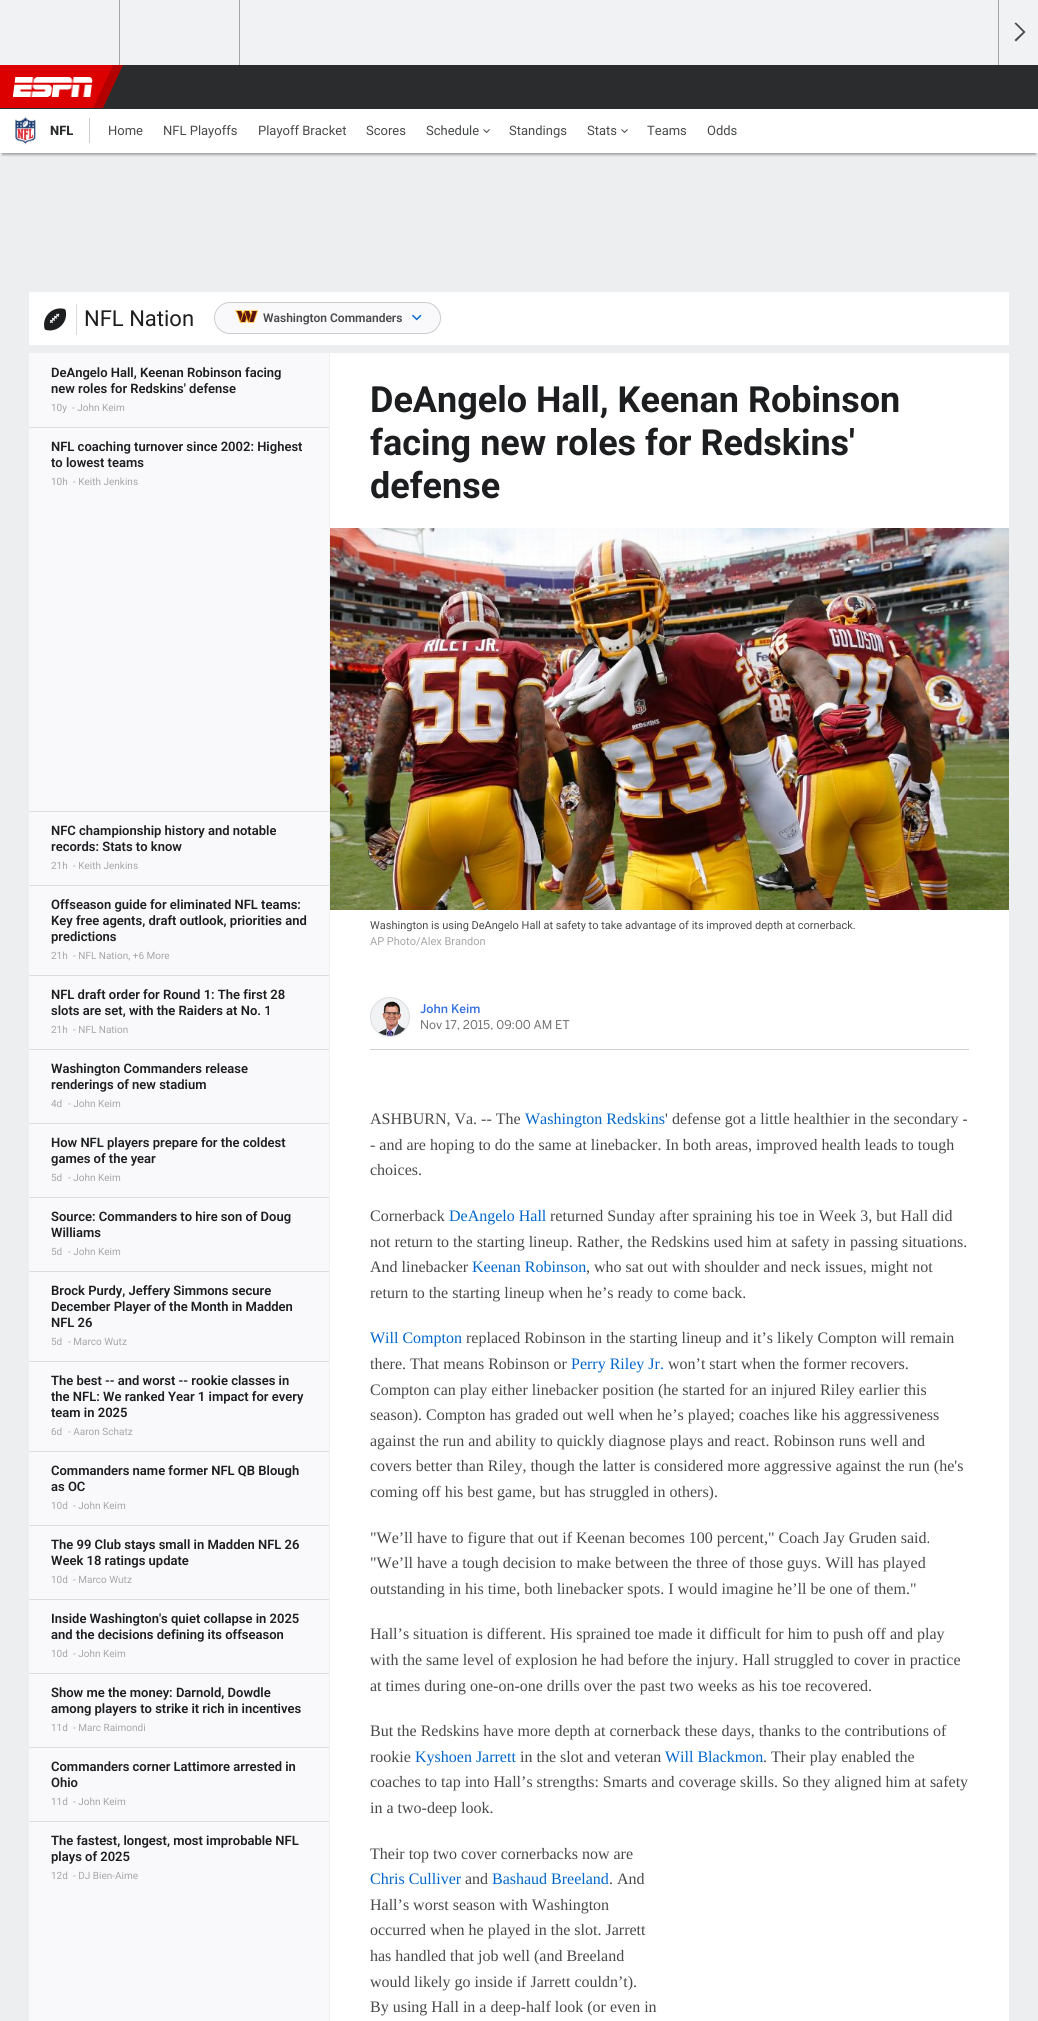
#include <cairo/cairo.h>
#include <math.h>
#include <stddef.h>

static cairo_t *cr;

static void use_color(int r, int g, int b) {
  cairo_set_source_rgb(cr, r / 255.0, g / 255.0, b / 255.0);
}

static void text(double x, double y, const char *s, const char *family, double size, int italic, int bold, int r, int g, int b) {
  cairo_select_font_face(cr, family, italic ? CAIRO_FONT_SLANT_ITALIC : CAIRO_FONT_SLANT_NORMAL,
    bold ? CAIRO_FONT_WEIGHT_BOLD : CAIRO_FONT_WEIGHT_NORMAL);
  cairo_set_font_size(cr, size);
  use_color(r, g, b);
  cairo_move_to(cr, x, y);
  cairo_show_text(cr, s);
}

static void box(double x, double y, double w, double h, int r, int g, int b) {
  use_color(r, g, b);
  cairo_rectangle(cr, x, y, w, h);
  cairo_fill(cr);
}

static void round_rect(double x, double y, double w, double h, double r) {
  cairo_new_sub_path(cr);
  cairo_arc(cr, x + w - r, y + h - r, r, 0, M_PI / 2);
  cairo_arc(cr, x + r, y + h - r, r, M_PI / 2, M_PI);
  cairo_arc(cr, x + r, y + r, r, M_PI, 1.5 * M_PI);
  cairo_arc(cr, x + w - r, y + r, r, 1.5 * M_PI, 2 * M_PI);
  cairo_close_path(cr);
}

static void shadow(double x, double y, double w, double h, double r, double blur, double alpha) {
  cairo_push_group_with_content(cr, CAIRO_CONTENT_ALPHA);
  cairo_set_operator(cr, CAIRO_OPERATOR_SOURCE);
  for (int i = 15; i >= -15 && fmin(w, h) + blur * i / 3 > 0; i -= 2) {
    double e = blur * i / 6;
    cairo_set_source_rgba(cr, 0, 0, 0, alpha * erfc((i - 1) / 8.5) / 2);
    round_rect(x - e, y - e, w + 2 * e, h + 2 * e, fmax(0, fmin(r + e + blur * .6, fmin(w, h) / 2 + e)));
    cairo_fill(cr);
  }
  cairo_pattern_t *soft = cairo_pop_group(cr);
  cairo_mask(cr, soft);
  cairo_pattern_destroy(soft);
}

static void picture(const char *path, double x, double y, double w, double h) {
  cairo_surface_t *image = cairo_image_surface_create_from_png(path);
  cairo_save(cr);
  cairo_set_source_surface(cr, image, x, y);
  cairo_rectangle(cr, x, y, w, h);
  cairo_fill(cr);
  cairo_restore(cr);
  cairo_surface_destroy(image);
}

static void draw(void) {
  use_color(237, 238, 240);
  cairo_paint(cr);
  box(0, 0, 1038, 65, 241, 242, 243);
  box(119, 0, 1, 65, 165, 166, 167);
  box(239, 0, 1, 65, 165, 166, 167);
  box(998, 0, 1, 65, 165, 166, 167);
  use_color(72, 73, 74);
  cairo_new_path(cr);
  cairo_move_to(cr, 1016, 22.5);
  cairo_line_to(cr, 1014.5, 23.5);
  cairo_line_to(cr, 1023, 32);
  cairo_line_to(cr, 1014.5, 40);
  cairo_line_to(cr, 1016, 41.5);
  cairo_line_to(cr, 1025.5, 32);
  cairo_close_path(cr);
  cairo_fill(cr);
  box(0, 65, 1038, 44, 43, 44, 45);
  use_color(180, 0, 0);
  cairo_new_path(cr);
  cairo_move_to(cr, 0, 65);
  cairo_line_to(cr, 123, 65);
  cairo_line_to(cr, 103, 108);
  cairo_line_to(cr, -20, 108);
  cairo_close_path(cr);
  cairo_fill(cr);
  use_color(221, 0, 0);
  cairo_new_path(cr);
  cairo_move_to(cr, -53, 65);
  cairo_line_to(cr, 113, 65);
  cairo_line_to(cr, 93, 108);
  cairo_line_to(cr, -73, 108);
  cairo_close_path(cr);
  cairo_fill(cr);
  picture("img_01.png", 13, 77, 80, 20);
  use_color(0, 0, 0);
  shadow(2, 115, 1034, 40, 0, 1, 0.3);
  use_color(255, 255, 255);
  round_rect(0, 109, 1038, 44, 1);
  cairo_fill(cr);
  picture("img_02.png", 14, 116, 22, 29);
  box(89, 118, 1, 25, 203, 204, 206);
  picture("img_03.png", 483, 129, 7, 5);
  picture("img_03.png", 621, 129, 7, 5);
  box(29, 292, 980, 53, 255, 255, 255);
  box(76, 304, 1, 31, 220, 221, 223);
  picture("img_04.png", 44, 308, 23, 23);
  use_color(249, 249, 251);
  round_rect(214.5, 302.5, 226, 31, 15.5);
  cairo_fill_preserve(cr);
  use_color(203, 204, 206);
  cairo_set_line_width(cr, 1);
  cairo_stroke(cr);
  picture("img_05.png", 235, 310, 23, 13);
  picture("img_06.png", 412, 314, 10, 7);
  box(29, 353, 300, 1668, 249, 249, 251);
  box(29, 427, 300, 1, 220, 221, 223);
  box(29, 811, 300, 1, 220, 221, 223);
  box(29, 885, 300, 1, 220, 221, 223);
  box(29, 975, 300, 1, 220, 221, 223);
  box(29, 1049, 300, 1, 220, 221, 223);
  box(29, 1123, 300, 1, 220, 221, 223);
  box(29, 1197, 300, 1, 220, 221, 223);
  box(29, 1271, 300, 1, 220, 221, 223);
  box(29, 1361, 300, 1, 220, 221, 223);
  box(29, 1451, 300, 1, 220, 221, 223);
  box(29, 1525, 300, 1, 220, 221, 223);
  box(29, 1599, 300, 1, 220, 221, 223);
  box(29, 1673, 300, 1, 220, 221, 223);
  box(29, 1747, 300, 1, 220, 221, 223);
  box(29, 1821, 300, 1, 220, 221, 223);
  box(329, 353, 1, 1668, 241, 242, 243);
  box(330, 353, 679, 1668, 255, 255, 255);
  picture("img_07.png", 330, 528, 679, 382);
  box(370, 1049, 599, 1, 206, 207, 207);
  use_color(241, 242, 243);
  cairo_arc(cr, 390, 1017, 19.5, 0, 2 * M_PI);
  cairo_fill_preserve(cr);
  use_color(220, 221, 223);
  cairo_stroke(cr);
  picture("img_08.png", 378, 1001, 28, 35);
  text(50, 135, "NFL", "Roboto ExtraBold", 13, 0, 0, 43, 44, 45);
  text(108, 135, "Home", "Roboto", 13, 0, 0, 72, 73, 74);
  text(163, 135, "NFL Playoffs", "Roboto", 13, 0, 0, 72, 73, 74);
  text(258, 135, "Playoff Bracket", "Roboto", 13, 0, 0, 72, 73, 74);
  text(366, 135, "Scores", "Roboto", 13, 0, 0, 72, 73, 74);
  text(426, 135, "Schedule", "Roboto", 13, 0, 0, 72, 73, 74);
  text(509, 135, "Standings", "Roboto", 13, 0, 0, 72, 73, 74);
  text(587, 135, "Stats", "Roboto", 13, 0, 0, 72, 73, 74);
  text(647, 135, "Teams", "Roboto", 13, 0, 0, 72, 73, 74);
  text(707, 135, "Odds", "Roboto", 13, 0, 0, 72, 73, 74);
  text(84, 326, "NFL Nation", "Roboto", 22, 0, 0, 29, 30, 31);
  text(263, 322, "Washington Commanders", "Roboto SemiBold", 12, 0, 0, 72, 73, 74);
  text(51, 377, "DeAngelo Hall, Keenan Robinson facing", "Roboto SemiBold", 13, 0, 0, 29, 30, 31);
  text(51, 393, "new roles for Redskins' defense", "Roboto SemiBold", 13, 0, 0, 29, 30, 31);
  text(51, 411, "10y", "Roboto", 10, 0, 0, 165, 166, 167);
  text(72, 411, "- John Keim", "Roboto", 10, 0, 0, 165, 166, 167);
  text(51, 451, "NFL coaching turnover since 2002: Highest", "Roboto SemiBold", 13, 0, 0, 29, 30, 31);
  text(51, 467, "to lowest teams", "Roboto SemiBold", 13, 0, 0, 29, 30, 31);
  text(51, 485, "10h", "Roboto", 10, 0, 0, 165, 166, 167);
  text(73, 485, "- Keith Jenkins", "Roboto", 10, 0, 0, 165, 166, 167);
  text(51, 835, "NFC championship history and notable", "Roboto SemiBold", 13, 0, 0, 29, 30, 31);
  text(51, 851, "records: Stats to know", "Roboto SemiBold", 13, 0, 0, 29, 30, 31);
  text(51, 869, "21h", "Roboto", 10, 0, 0, 165, 166, 167);
  text(73, 869, "- Keith Jenkins", "Roboto", 10, 0, 0, 165, 166, 167);
  text(51, 909, "Offseason guide for eliminated NFL teams:", "Roboto SemiBold", 13, 0, 0, 29, 30, 31);
  text(51, 925, "Key free agents, draft outlook, priorities and", "Roboto SemiBold", 13, 0, 0, 29, 30, 31);
  text(51, 941, "predictions", "Roboto SemiBold", 13, 0, 0, 29, 30, 31);
  text(51, 959, "21h", "Roboto", 10, 0, 0, 165, 166, 167);
  text(73, 959, "- NFL Nation, +6 More", "Roboto", 10, 0, 0, 165, 166, 167);
  text(51, 999, "NFL draft order for Round 1: The first 28", "Roboto SemiBold", 13, 0, 0, 29, 30, 31);
  text(51, 1015, "slots are set, with the Raiders at No. 1", "Roboto SemiBold", 13, 0, 0, 29, 30, 31);
  text(51, 1033, "21h", "Roboto", 10, 0, 0, 165, 166, 167);
  text(73, 1033, "- NFL Nation", "Roboto", 10, 0, 0, 165, 166, 167);
  text(51, 1073, "Washington Commanders release", "Roboto SemiBold", 13, 0, 0, 29, 30, 31);
  text(51, 1089, "renderings of new stadium", "Roboto SemiBold", 13, 0, 0, 29, 30, 31);
  text(51, 1107, "4d", "Roboto", 10, 0, 0, 165, 166, 167);
  text(68, 1107, "- John Keim", "Roboto", 10, 0, 0, 165, 166, 167);
  text(51, 1147, "How NFL players prepare for the coldest", "Roboto SemiBold", 13, 0, 0, 29, 30, 31);
  text(51, 1163, "games of the year", "Roboto SemiBold", 13, 0, 0, 29, 30, 31);
  text(51, 1181, "5d", "Roboto", 10, 0, 0, 165, 166, 167);
  text(68, 1181, "- John Keim", "Roboto", 10, 0, 0, 165, 166, 167);
  text(51, 1221, "Source: Commanders to hire son of Doug", "Roboto SemiBold", 13, 0, 0, 29, 30, 31);
  text(51, 1237, "Williams", "Roboto SemiBold", 13, 0, 0, 29, 30, 31);
  text(51, 1255, "5d", "Roboto", 10, 0, 0, 165, 166, 167);
  text(68, 1255, "- John Keim", "Roboto", 10, 0, 0, 165, 166, 167);
  text(51, 1295, "Brock Purdy, Jeffery Simmons secure", "Roboto SemiBold", 13, 0, 0, 29, 30, 31);
  text(51, 1311, "December Player of the Month in Madden", "Roboto SemiBold", 13, 0, 0, 29, 30, 31);
  text(51, 1327, "NFL 26", "Roboto SemiBold", 13, 0, 0, 29, 30, 31);
  text(51, 1345, "5d", "Roboto", 10, 0, 0, 165, 166, 167);
  text(68, 1345, "- Marco Wutz", "Roboto", 10, 0, 0, 165, 166, 167);
  text(51, 1385, "The best -- and worst -- rookie classes in", "Roboto SemiBold", 13, 0, 0, 29, 30, 31);
  text(51, 1401, "the NFL: We ranked Year 1 impact for every", "Roboto SemiBold", 13, 0, 0, 29, 30, 31);
  text(51, 1417, "team in 2025", "Roboto SemiBold", 13, 0, 0, 29, 30, 31);
  text(51, 1435, "6d", "Roboto", 10, 0, 0, 165, 166, 167);
  text(68, 1435, "- Aaron Schatz", "Roboto", 10, 0, 0, 165, 166, 167);
  text(51, 1475, "Commanders name former NFL QB Blough", "Roboto SemiBold", 13, 0, 0, 29, 30, 31);
  text(51, 1491, "as OC", "Roboto SemiBold", 13, 0, 0, 29, 30, 31);
  text(51, 1509, "10d", "Roboto", 10, 0, 0, 165, 166, 167);
  text(73, 1509, "- John Keim", "Roboto", 10, 0, 0, 165, 166, 167);
  text(51, 1549, "The 99 Club stays small in Madden NFL 26", "Roboto SemiBold", 13, 0, 0, 29, 30, 31);
  text(51, 1565, "Week 18 ratings update", "Roboto SemiBold", 13, 0, 0, 29, 30, 31);
  text(51, 1583, "10d", "Roboto", 10, 0, 0, 165, 166, 167);
  text(73, 1583, "- Marco Wutz", "Roboto", 10, 0, 0, 165, 166, 167);
  text(51, 1623, "Inside Washington's quiet collapse in 2025", "Roboto SemiBold", 13, 0, 0, 29, 30, 31);
  text(51, 1639, "and the decisions defining its offseason", "Roboto SemiBold", 13, 0, 0, 29, 30, 31);
  text(51, 1657, "10d", "Roboto", 10, 0, 0, 165, 166, 167);
  text(73, 1657, "- John Keim", "Roboto", 10, 0, 0, 165, 166, 167);
  text(51, 1697, "Show me the money: Darnold, Dowdle", "Roboto SemiBold", 13, 0, 0, 29, 30, 31);
  text(51, 1713, "among players to strike it rich in incentives", "Roboto SemiBold", 13, 0, 0, 29, 30, 31);
  text(51, 1731, "11d", "Roboto", 10, 0, 0, 165, 166, 167);
  text(73, 1731, "- Marc Raimondi", "Roboto", 10, 0, 0, 165, 166, 167);
  text(51, 1771, "Commanders corner Lattimore arrested in", "Roboto SemiBold", 13, 0, 0, 29, 30, 31);
  text(51, 1787, "Ohio", "Roboto SemiBold", 13, 0, 0, 29, 30, 31);
  text(51, 1805, "11d", "Roboto", 10, 0, 0, 165, 166, 167);
  text(73, 1805, "- John Keim", "Roboto", 10, 0, 0, 165, 166, 167);
  text(51, 1845, "The fastest, longest, most improbable NFL", "Roboto SemiBold", 13, 0, 0, 29, 30, 31);
  text(51, 1861, "plays of 2025", "Roboto SemiBold", 13, 0, 0, 29, 30, 31);
  text(51, 1879, "12d", "Roboto", 10, 0, 0, 165, 166, 167);
  text(73, 1879, "- DJ Bien-Aime", "Roboto", 10, 0, 0, 165, 166, 167);
  text(370, 412, "DeAngelo Hall, Keenan Robinson", "Roboto", 36, 0, 1, 29, 30, 31);
  text(370, 455, "facing new roles for Redskins'", "Roboto", 36, 0, 1, 29, 30, 31);
  text(370, 498, "defense", "Roboto", 36, 0, 1, 29, 30, 31);
  text(370, 929, "Washington is using DeAngelo Hall at safety to take advantage of its improved depth at cornerback.", "Roboto", 11, 0, 0, 72, 73, 74);
  text(370, 945, "AP Photo/Alex Brandon", "Roboto", 11, 0, 0, 165, 166, 167);
  text(420, 1013, "John Keim", "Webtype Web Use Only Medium", 12, 0, 0, 55, 114, 223);
  text(420, 1029, "Nov 17, 2015, 09:00 AM ET", "Webtype Web Use Only", 12, 0, 0, 108, 109, 111);
  text(370, 1124, "ASHBURN, Va. -- The", "Liberation Serif", 16, 0, 0, 72, 73, 74);
  text(525, 1124, "Washington Redskins", "Liberation Serif", 16, 0, 0, 0, 102, 204);
  text(665, 1124, "' defense got a little healthier in the secondary -", "Liberation Serif", 16, 0, 0, 72, 73, 74);
  text(370, 1150, "- and are hoping to do the same at linebacker. In both areas, improved health leads to tough", "Liberation Serif", 16, 0, 0, 72, 73, 74);
  text(370, 1175, "choices.", "Liberation Serif", 16, 0, 0, 72, 73, 74);
  text(370, 1221, "Cornerback", "Liberation Serif", 16, 0, 0, 72, 73, 74);
  text(449, 1221, "DeAngelo Hall", "Liberation Serif", 16, 0, 0, 0, 102, 204);
  text(550, 1221, "returned Sunday after spraining his toe in Week 3, but Hall did", "Liberation Serif", 16, 0, 0, 72, 73, 74);
  text(370, 1247, "not return to the starting lineup. Rather, the Redskins used him at safety in passing situations.", "Liberation Serif", 16, 0, 0, 72, 73, 74);
  text(370, 1272, "And linebacker", "Liberation Serif", 16, 0, 0, 72, 73, 74);
  text(472, 1272, "Keenan Robinson", "Liberation Serif", 16, 0, 0, 0, 102, 204);
  text(586, 1272, ", who sat out with shoulder and neck issues, might not", "Liberation Serif", 16, 0, 0, 72, 73, 74);
  text(370, 1298, "return to the starting lineup when he’s ready to come back.", "Liberation Serif", 16, 0, 0, 72, 73, 74);
  text(370, 1343, "Will Compton", "Liberation Serif", 16, 0, 0, 0, 102, 204);
  text(466, 1343, "replaced Robinson in the starting lineup and it’s likely Compton will remain", "Liberation Serif", 16, 0, 0, 72, 73, 74);
  text(370, 1369, "there. That means Robinson or", "Liberation Serif", 16, 0, 0, 72, 73, 74);
  text(571, 1369, "Perry Riley Jr.", "Liberation Serif", 16, 0, 0, 0, 102, 204);
  text(668, 1369, "won’t start when the former recovers.", "Liberation Serif", 16, 0, 0, 72, 73, 74);
  text(370, 1395, "Compton can play either linebacker position (he started for an injured Riley earlier this", "Liberation Serif", 16, 0, 0, 72, 73, 74);
  text(370, 1420, "season). Compton has graded out well when he’s played; coaches like his aggressiveness", "Liberation Serif", 16, 0, 0, 72, 73, 74);
  text(370, 1446, "against the run and ability to quickly diagnose plays and react. Robinson runs well and", "Liberation Serif", 16, 0, 0, 72, 73, 74);
  text(370, 1471, "covers better than Riley, though the latter is considered more aggressive against the run (he's", "Liberation Serif", 16, 0, 0, 72, 73, 74);
  text(370, 1497, "coming off his best game, but has struggled in others).", "Liberation Serif", 16, 0, 0, 72, 73, 74);
  text(370, 1543, "\"We’ll have to figure that out if Keenan becomes 100 percent,\" Coach Jay Gruden said.", "Liberation Serif", 16, 0, 0, 72, 73, 74);
  text(370, 1568, "\"We’ll have a tough decision to make between the three of those guys. Will has played", "Liberation Serif", 16, 0, 0, 72, 73, 74);
  text(370, 1594, "outstanding in his time, both linebacker spots. I would imagine he’ll be one of them.\"", "Liberation Serif", 16, 0, 0, 72, 73, 74);
  text(370, 1639, "Hall’s situation is different. His sprained toe made it difficult for him to push off and play", "Liberation Serif", 16, 0, 0, 72, 73, 74);
  text(370, 1665, "with the same level of explosion he had before the injury. Hall struggled to cover in practice", "Liberation Serif", 16, 0, 0, 72, 73, 74);
  text(370, 1691, "at times during one-on-one drills over the past two weeks as his toe recovered.", "Liberation Serif", 16, 0, 0, 72, 73, 74);
  text(370, 1736, "But the Redskins have more depth at cornerback these days, thanks to the contributions of", "Liberation Serif", 16, 0, 0, 72, 73, 74);
  text(370, 1762, "rookie", "Liberation Serif", 16, 0, 0, 72, 73, 74);
  text(415, 1762, "Kyshoen Jarrett", "Liberation Serif", 16, 0, 0, 0, 102, 204);
  text(520, 1762, "in the slot and veteran", "Liberation Serif", 16, 0, 0, 72, 73, 74);
  text(665, 1762, "Will Blackmon", "Liberation Serif", 16, 0, 0, 0, 102, 204);
  text(763, 1762, ". Their play enabled the", "Liberation Serif", 16, 0, 0, 72, 73, 74);
  text(370, 1787, "coaches to tap into Hall’s strengths: Smarts and coverage skills. So they aligned him at safety", "Liberation Serif", 16, 0, 0, 72, 73, 74);
  text(370, 1813, "in a two-deep look.", "Liberation Serif", 16, 0, 0, 72, 73, 74);
  text(370, 1859, "Their top two cover cornerbacks now are", "Liberation Serif", 16, 0, 0, 72, 73, 74);
  text(370, 1884, "Chris Culliver", "Liberation Serif", 16, 0, 0, 0, 102, 204);
  text(465, 1884, "and", "Liberation Serif", 16, 0, 0, 72, 73, 74);
  text(492, 1884, "Bashaud Breeland", "Liberation Serif", 16, 0, 0, 0, 102, 204);
  text(609, 1884, ". And", "Liberation Serif", 16, 0, 0, 72, 73, 74);
  text(370, 1910, "Hall’s worst season with Washington", "Liberation Serif", 16, 0, 0, 72, 73, 74);
  text(370, 1935, "occurred when he played in the slot. Jarrett", "Liberation Serif", 16, 0, 0, 72, 73, 74);
  text(370, 1961, "has handled that job well (and Breeland", "Liberation Serif", 16, 0, 0, 72, 73, 74);
  text(370, 1987, "would likely go inside if Jarrett couldn’t).", "Liberation Serif", 16, 0, 0, 72, 73, 74);
  text(370, 2012, "By using Hall in a deep-half look (or even in", "Liberation Serif", 16, 0, 0, 72, 73, 74);
}

int main(void) {
  cairo_surface_t *surface = cairo_image_surface_create(CAIRO_FORMAT_RGB24, 1038, 2021);
  cr = cairo_create(surface);
  cairo_font_options_t *options = cairo_font_options_create();
  cairo_font_options_set_hint_metrics(options, CAIRO_HINT_METRICS_OFF);
  cairo_font_options_set_hint_style(options, CAIRO_HINT_STYLE_NONE);
  cairo_set_font_options(cr, options);
  cairo_set_miter_limit(cr, 4);
  draw();
  cairo_surface_write_to_png(surface, "out.png");
  cairo_font_options_destroy(options);
  cairo_destroy(cr);
  cairo_surface_destroy(surface);
  return 0;
}
